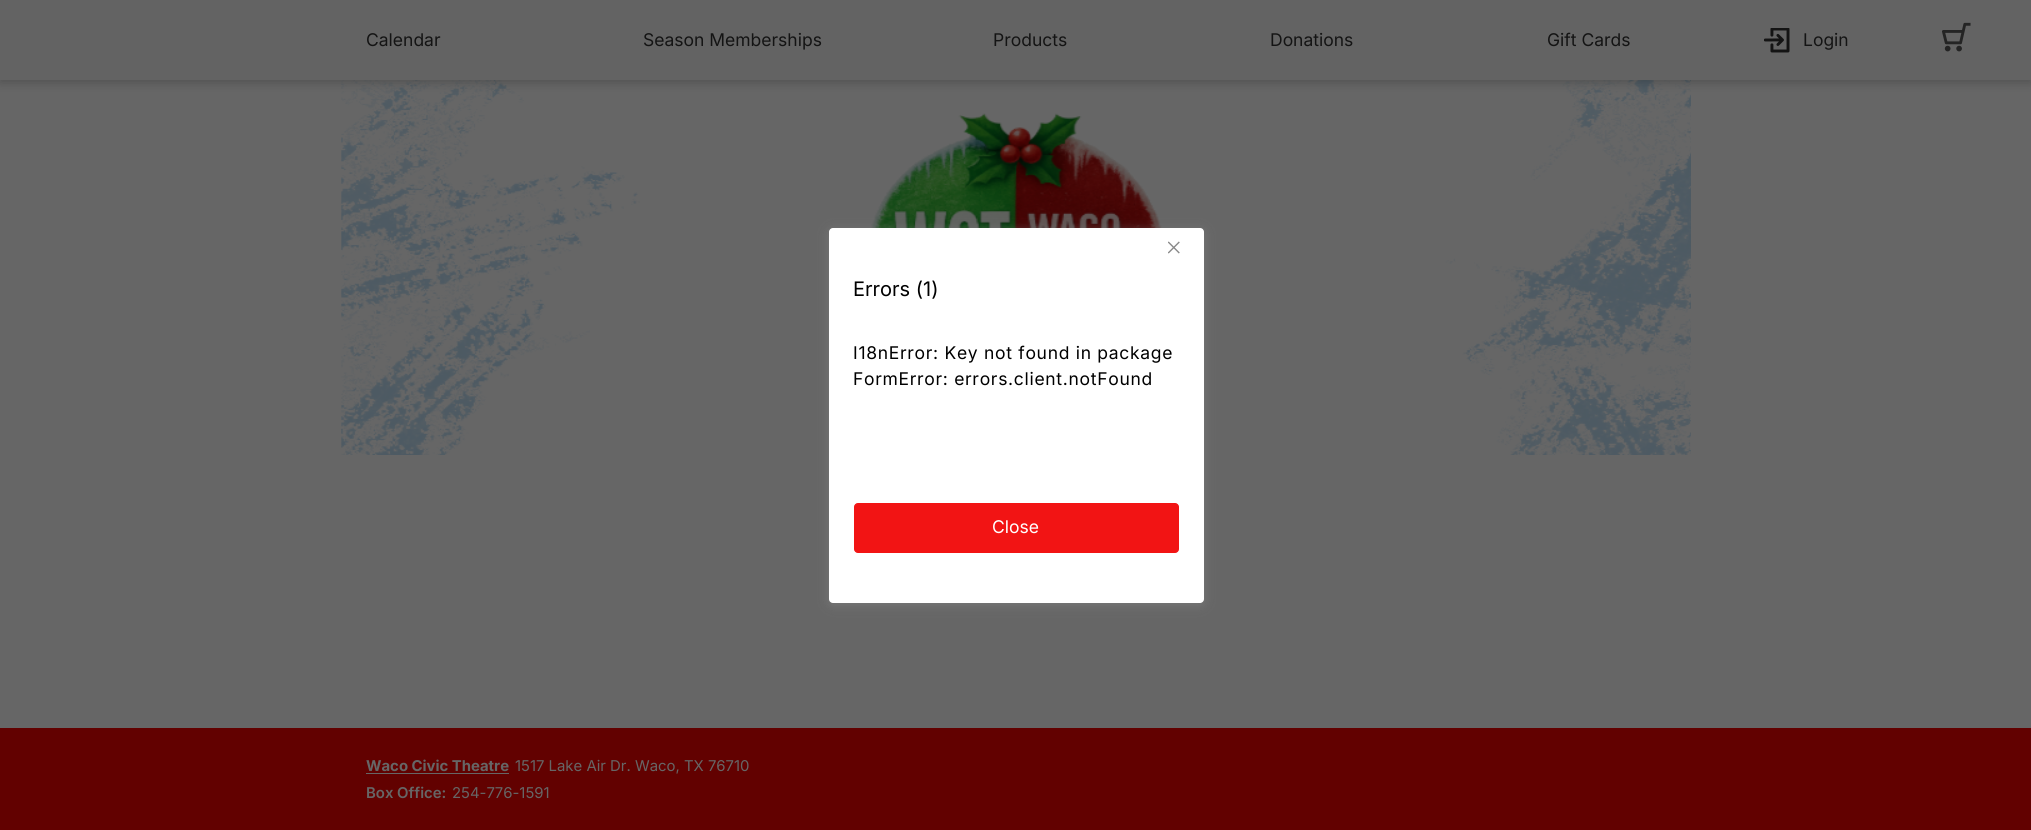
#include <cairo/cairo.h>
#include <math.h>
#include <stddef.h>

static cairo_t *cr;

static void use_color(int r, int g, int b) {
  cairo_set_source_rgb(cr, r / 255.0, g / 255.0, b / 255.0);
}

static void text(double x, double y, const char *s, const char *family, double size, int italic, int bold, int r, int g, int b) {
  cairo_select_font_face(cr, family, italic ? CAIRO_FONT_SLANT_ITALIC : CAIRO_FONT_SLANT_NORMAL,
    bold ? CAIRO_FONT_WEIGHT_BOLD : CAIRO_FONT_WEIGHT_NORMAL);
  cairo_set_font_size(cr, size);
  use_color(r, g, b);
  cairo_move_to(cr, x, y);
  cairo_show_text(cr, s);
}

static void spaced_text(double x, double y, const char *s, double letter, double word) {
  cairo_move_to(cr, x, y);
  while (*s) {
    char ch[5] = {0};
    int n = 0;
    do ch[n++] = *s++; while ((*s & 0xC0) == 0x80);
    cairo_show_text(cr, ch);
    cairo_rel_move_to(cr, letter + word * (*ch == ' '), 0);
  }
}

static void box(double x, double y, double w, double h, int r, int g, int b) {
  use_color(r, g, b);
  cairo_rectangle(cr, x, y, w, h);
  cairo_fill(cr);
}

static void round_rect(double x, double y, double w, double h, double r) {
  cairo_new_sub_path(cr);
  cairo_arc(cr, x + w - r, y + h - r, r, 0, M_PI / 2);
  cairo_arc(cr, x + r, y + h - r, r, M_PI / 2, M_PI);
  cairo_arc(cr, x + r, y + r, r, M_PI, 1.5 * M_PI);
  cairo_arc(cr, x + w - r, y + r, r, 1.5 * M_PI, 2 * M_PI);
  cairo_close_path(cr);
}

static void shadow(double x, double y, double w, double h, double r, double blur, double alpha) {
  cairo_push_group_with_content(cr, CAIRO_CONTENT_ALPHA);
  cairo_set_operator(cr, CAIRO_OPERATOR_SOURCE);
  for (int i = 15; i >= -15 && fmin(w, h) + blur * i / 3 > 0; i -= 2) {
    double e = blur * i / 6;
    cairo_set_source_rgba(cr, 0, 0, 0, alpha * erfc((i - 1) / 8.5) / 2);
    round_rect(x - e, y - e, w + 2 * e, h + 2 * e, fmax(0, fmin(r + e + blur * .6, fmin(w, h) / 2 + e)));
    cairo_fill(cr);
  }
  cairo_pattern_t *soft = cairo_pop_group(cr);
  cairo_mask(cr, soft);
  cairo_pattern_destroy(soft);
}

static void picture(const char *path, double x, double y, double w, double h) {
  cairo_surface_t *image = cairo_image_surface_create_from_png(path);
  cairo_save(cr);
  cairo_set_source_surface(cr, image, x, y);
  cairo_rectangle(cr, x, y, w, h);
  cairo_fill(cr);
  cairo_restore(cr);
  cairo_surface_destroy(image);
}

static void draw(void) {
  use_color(102, 102, 102);
  cairo_paint(cr);
  picture("img_03.png", 341, 80, 1350, 375);
  use_color(0, 0, 0);
  shadow(0, 3, 2031, 80, 0, 5, 0.2);
  box(0, 0, 2031, 80, 99, 99, 99);
  picture("img_01.png", 1764, 28, 26, 25);
  picture("img_02.png", 1942, 22, 29, 30);
  use_color(136, 136, 136);
  shadow(829, 230, 375, 375, 4, 5, 0.5);
  use_color(255, 255, 255);
  round_rect(829, 228, 375, 375, 4);
  cairo_fill(cr);
  picture("img_04.png", 1168, 241, 12, 13);
  use_color(242, 20, 20);
  round_rect(854.5, 503.5, 324, 49, 3.5);
  cairo_fill_preserve(cr);
  cairo_set_line_width(cr, 1);
  cairo_stroke(cr);
  box(0, 728, 2031, 102, 98, 1, 0);
  box(366, 773, 143, 1, 102, 102, 102);
  text(366, 46, "Calendar", "Inter", 17.5, 0, 0, 20, 20, 20);
  text(643, 46, "Season Memberships", "Inter", 17.5, 0, 0, 20, 20, 20);
  text(993, 46, "Products", "Inter", 17.5, 0, 0, 20, 20, 20);
  text(1270, 46, "Donations", "Inter", 17.5, 0, 0, 20, 20, 20);
  text(1547, 46, "Gift Cards", "Inter", 17.5, 0, 0, 20, 20, 20);
  text(1803, 46, "Login", "Inter", 17.5, 0, 0, 20, 20, 20);
  text(853, 296, "Errors (1)", "Inter", 20, 0, 0, 0, 0, 0);
  cairo_set_font_size(cr, 17.5);
  spaced_text(853, 359, "I18nError: Key not found in package", 0.7, 0);
  spaced_text(853, 385, "FormError: errors.client.notFound", 0.7, 0);
  text(992, 533, "Close", "Inter", 17.5, 0, 0, 255, 255, 255);
  text(366, 771, "Waco Civic Theatre", "Inter", 14.9, 0, 1, 102, 102, 102);
  text(515, 771, "1517 Lake Air Dr. Waco, TX 76710", "Inter", 14.9, 0, 0, 102, 102, 102);
  text(366, 798, "Box Office:", "Inter SemiBold", 14.9, 0, 0, 102, 102, 102);
  text(452, 798, "254-776-1591", "Inter", 14.9, 0, 0, 102, 102, 102);
}

int main(void) {
  cairo_surface_t *surface = cairo_image_surface_create(CAIRO_FORMAT_RGB24, 2031, 830);
  cr = cairo_create(surface);
  cairo_font_options_t *options = cairo_font_options_create();
  cairo_font_options_set_hint_metrics(options, CAIRO_HINT_METRICS_OFF);
  cairo_font_options_set_hint_style(options, CAIRO_HINT_STYLE_NONE);
  cairo_set_font_options(cr, options);
  cairo_set_miter_limit(cr, 4);
  draw();
  cairo_surface_write_to_png(surface, "out.png");
  cairo_font_options_destroy(options);
  cairo_destroy(cr);
  cairo_surface_destroy(surface);
  return 0;
}
